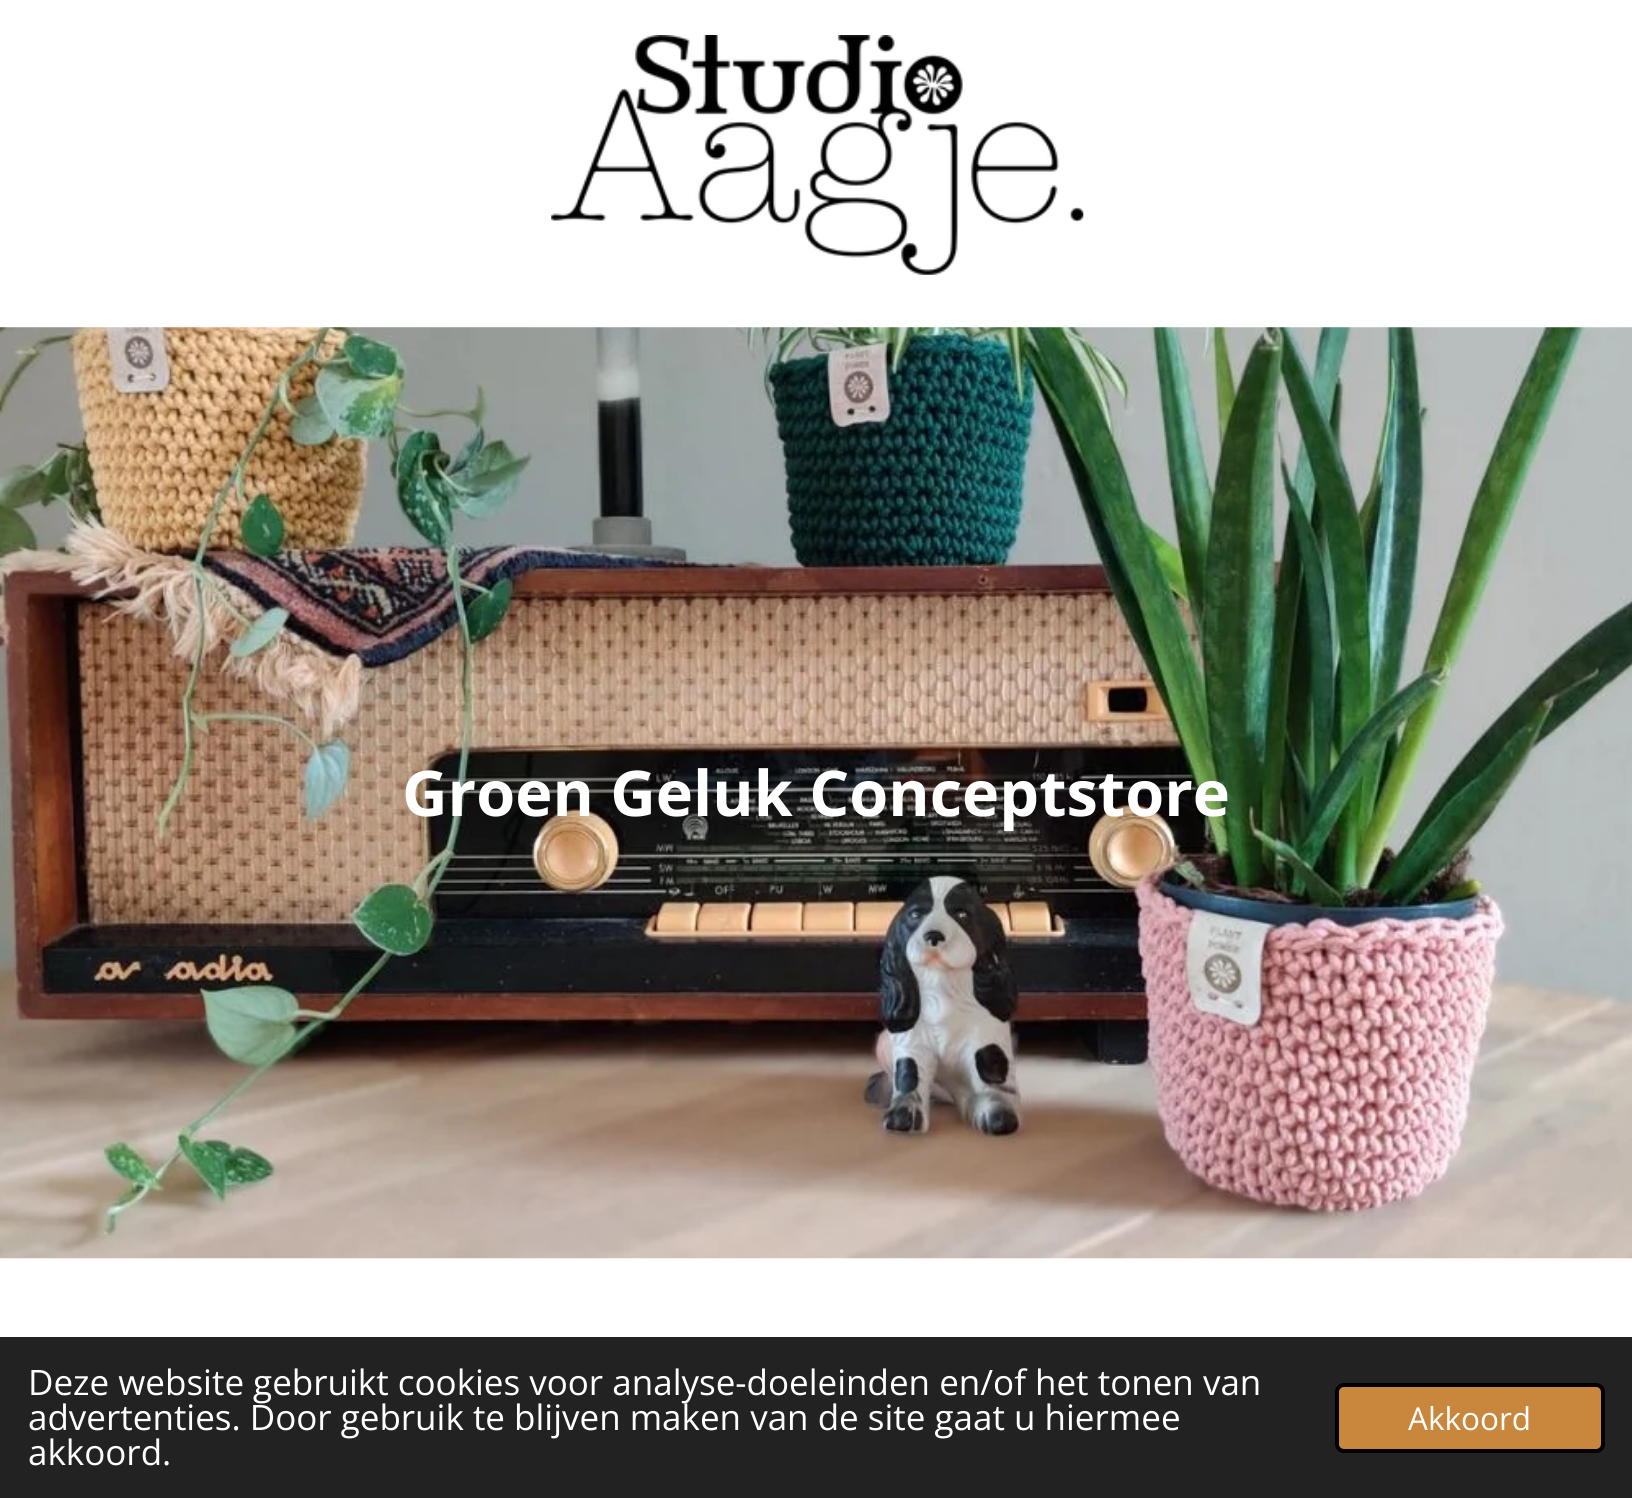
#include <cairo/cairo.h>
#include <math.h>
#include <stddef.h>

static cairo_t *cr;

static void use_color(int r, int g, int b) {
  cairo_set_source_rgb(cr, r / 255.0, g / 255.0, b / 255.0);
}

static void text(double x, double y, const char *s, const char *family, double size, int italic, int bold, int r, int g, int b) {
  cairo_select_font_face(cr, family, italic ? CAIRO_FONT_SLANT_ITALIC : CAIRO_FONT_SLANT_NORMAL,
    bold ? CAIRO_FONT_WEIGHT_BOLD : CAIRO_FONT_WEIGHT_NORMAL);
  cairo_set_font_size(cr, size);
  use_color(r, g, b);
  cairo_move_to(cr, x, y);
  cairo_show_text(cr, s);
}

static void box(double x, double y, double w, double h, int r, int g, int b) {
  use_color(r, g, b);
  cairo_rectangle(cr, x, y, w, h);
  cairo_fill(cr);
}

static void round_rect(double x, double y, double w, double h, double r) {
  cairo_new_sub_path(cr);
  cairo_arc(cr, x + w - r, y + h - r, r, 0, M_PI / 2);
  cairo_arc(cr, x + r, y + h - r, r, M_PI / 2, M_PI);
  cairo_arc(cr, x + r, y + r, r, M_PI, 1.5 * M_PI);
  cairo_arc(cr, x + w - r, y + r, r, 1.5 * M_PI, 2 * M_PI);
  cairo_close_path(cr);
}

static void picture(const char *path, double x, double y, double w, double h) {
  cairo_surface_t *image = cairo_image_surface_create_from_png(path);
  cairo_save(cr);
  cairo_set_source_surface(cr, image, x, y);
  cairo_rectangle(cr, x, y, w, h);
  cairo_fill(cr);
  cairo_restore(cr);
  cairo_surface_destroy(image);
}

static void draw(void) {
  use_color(255, 255, 255);
  cairo_paint(cr);
  picture("img_01.png", 551, 35, 533, 240);
  picture("img_02.png", 0, 327, 1632, 932);
  box(0, 1337, 1632, 161, 34, 34, 34);
  use_color(201, 135, 62);
  round_rect(1337, 1385, 266, 66, 7);
  cairo_fill_preserve(cr);
  use_color(0, 0, 0);
  cairo_set_line_width(cr, 4);
  cairo_stroke(cr);
  text(402, 816, "Groen Geluk Conceptstore", "Open Sans", 63, 0, 1, 255, 255, 255);
  text(28, 1395, "Deze website gebruikt cookies voor analyse-doeleinden en/of het tonen van", "Open Sans", 35, 0, 0, 255, 255, 255);
  text(28, 1430, "advertenties. Door gebruik te blijven maken van de site gaat u hiermee", "Open Sans", 35, 0, 0, 255, 255, 255);
  text(28, 1465, "akkoord.", "Open Sans", 35, 0, 0, 255, 255, 255);
  text(1408, 1430, "Akkoord", "Open Sans", 31.5, 0, 0, 255, 255, 255);
}

int main(void) {
  cairo_surface_t *surface = cairo_image_surface_create(CAIRO_FORMAT_RGB24, 1632, 1498);
  cr = cairo_create(surface);
  cairo_font_options_t *options = cairo_font_options_create();
  cairo_font_options_set_hint_metrics(options, CAIRO_HINT_METRICS_OFF);
  cairo_font_options_set_hint_style(options, CAIRO_HINT_STYLE_NONE);
  cairo_set_font_options(cr, options);
  cairo_set_miter_limit(cr, 4);
  draw();
  cairo_surface_write_to_png(surface, "out.png");
  cairo_font_options_destroy(options);
  cairo_destroy(cr);
  cairo_surface_destroy(surface);
  return 0;
}
